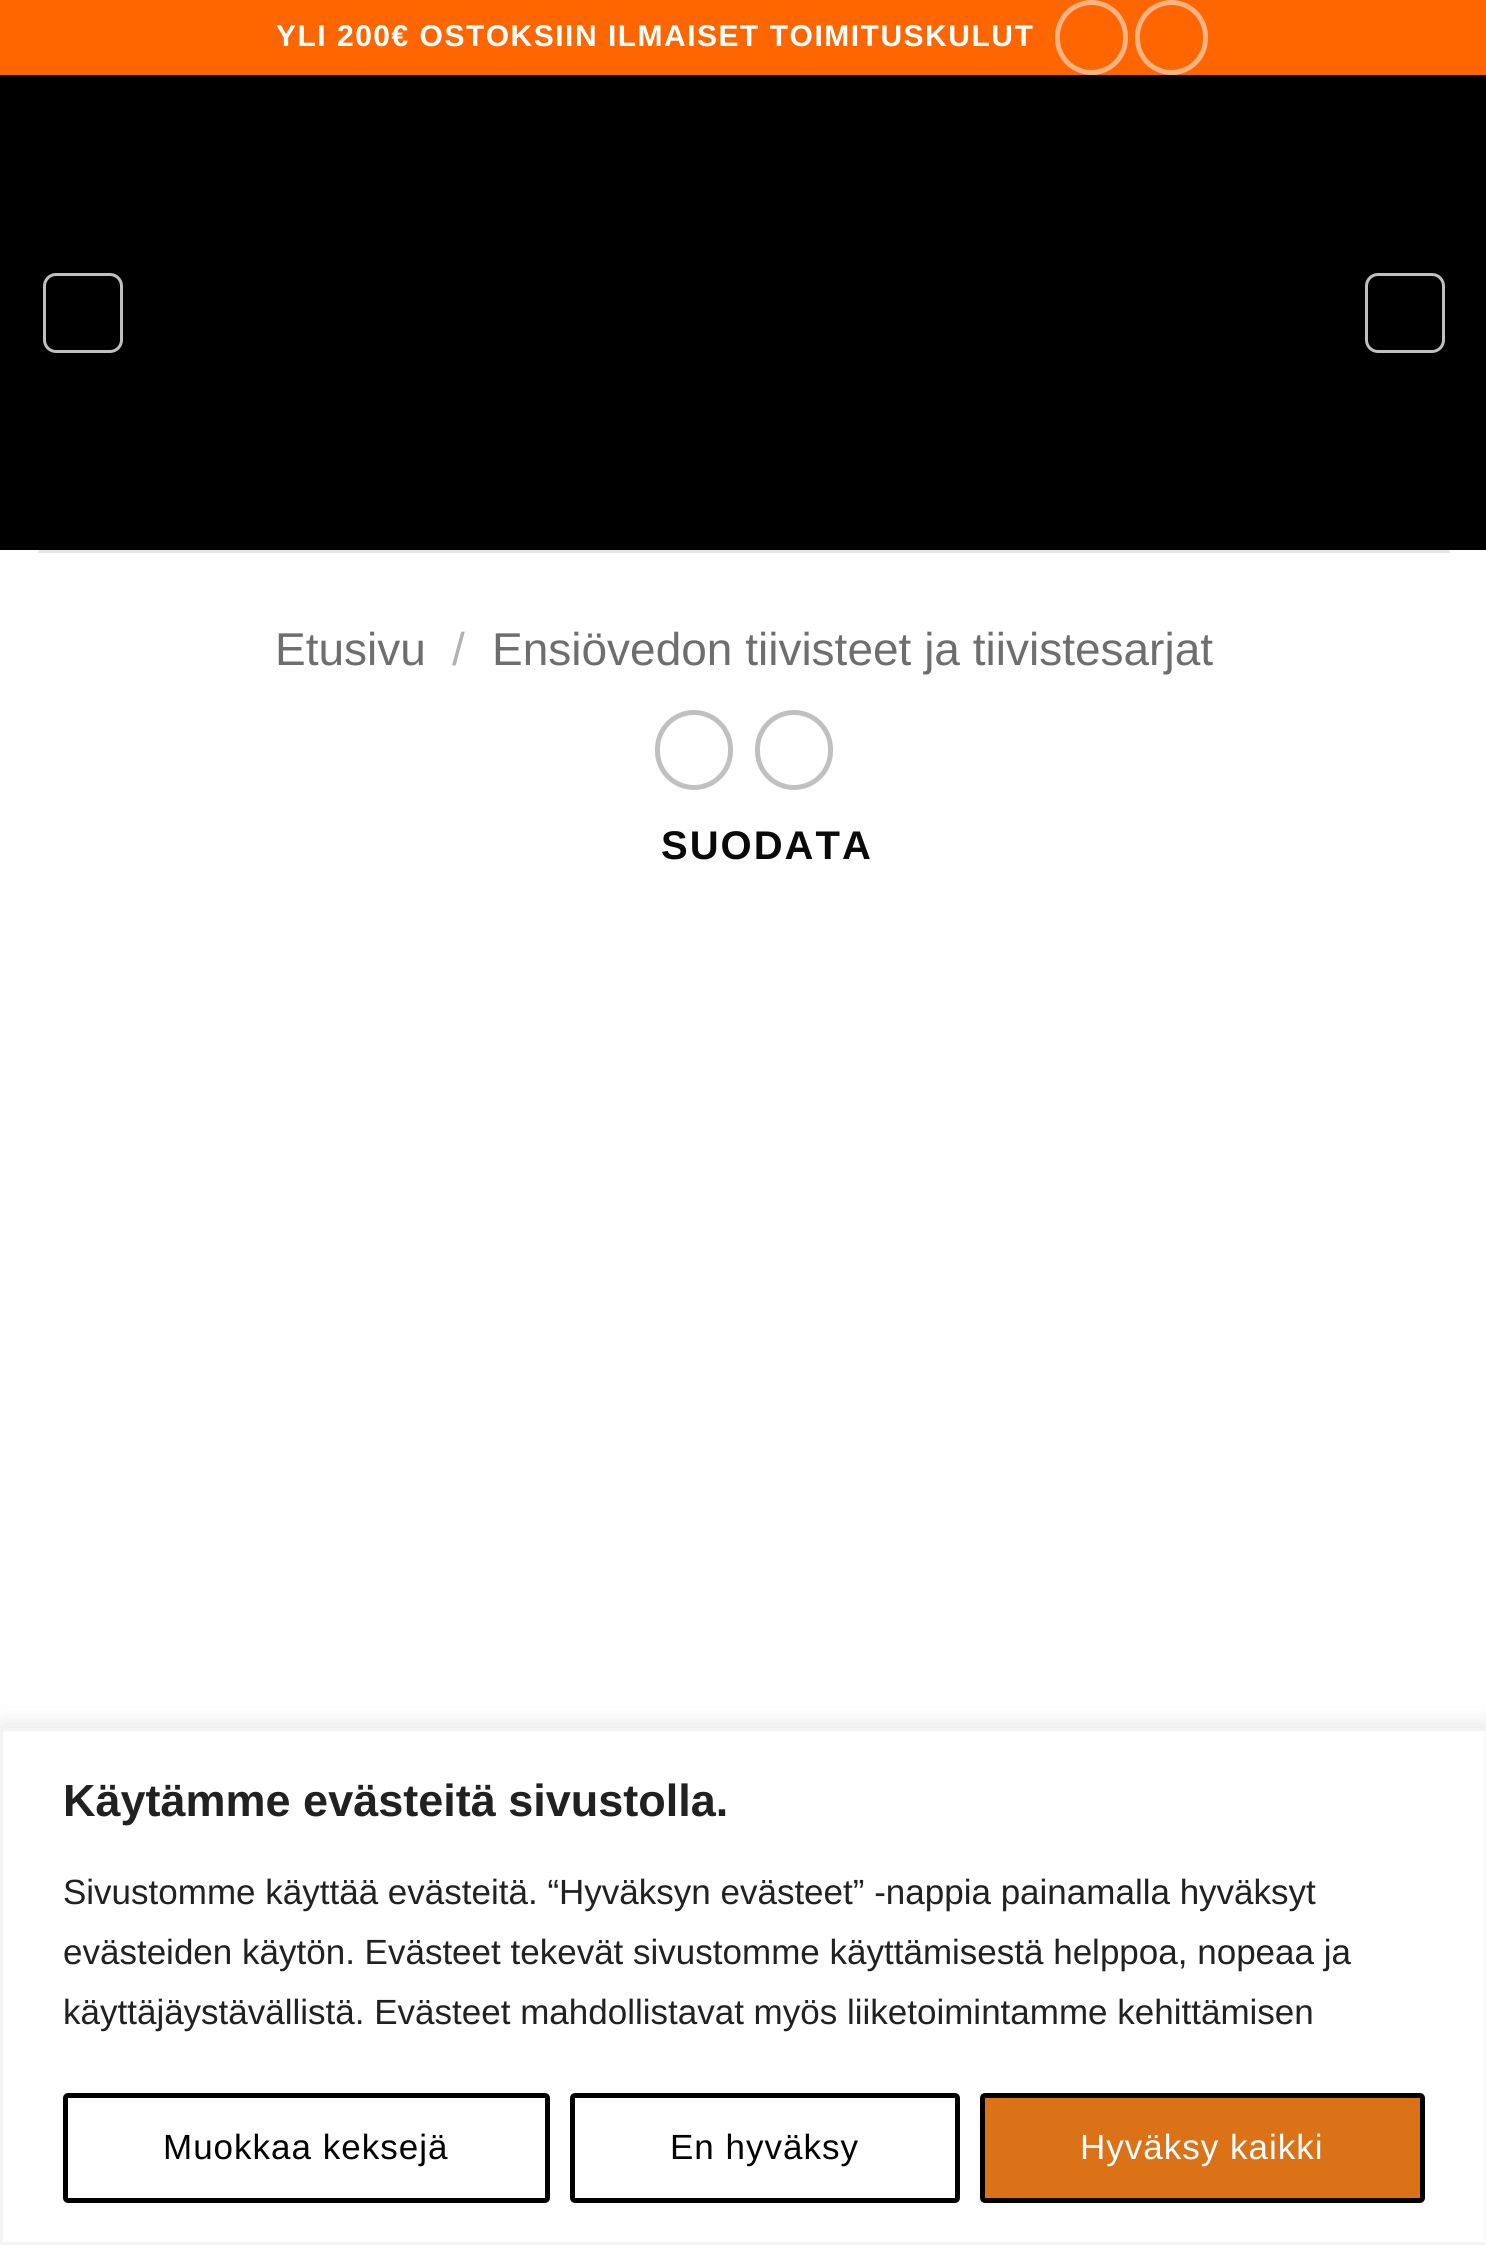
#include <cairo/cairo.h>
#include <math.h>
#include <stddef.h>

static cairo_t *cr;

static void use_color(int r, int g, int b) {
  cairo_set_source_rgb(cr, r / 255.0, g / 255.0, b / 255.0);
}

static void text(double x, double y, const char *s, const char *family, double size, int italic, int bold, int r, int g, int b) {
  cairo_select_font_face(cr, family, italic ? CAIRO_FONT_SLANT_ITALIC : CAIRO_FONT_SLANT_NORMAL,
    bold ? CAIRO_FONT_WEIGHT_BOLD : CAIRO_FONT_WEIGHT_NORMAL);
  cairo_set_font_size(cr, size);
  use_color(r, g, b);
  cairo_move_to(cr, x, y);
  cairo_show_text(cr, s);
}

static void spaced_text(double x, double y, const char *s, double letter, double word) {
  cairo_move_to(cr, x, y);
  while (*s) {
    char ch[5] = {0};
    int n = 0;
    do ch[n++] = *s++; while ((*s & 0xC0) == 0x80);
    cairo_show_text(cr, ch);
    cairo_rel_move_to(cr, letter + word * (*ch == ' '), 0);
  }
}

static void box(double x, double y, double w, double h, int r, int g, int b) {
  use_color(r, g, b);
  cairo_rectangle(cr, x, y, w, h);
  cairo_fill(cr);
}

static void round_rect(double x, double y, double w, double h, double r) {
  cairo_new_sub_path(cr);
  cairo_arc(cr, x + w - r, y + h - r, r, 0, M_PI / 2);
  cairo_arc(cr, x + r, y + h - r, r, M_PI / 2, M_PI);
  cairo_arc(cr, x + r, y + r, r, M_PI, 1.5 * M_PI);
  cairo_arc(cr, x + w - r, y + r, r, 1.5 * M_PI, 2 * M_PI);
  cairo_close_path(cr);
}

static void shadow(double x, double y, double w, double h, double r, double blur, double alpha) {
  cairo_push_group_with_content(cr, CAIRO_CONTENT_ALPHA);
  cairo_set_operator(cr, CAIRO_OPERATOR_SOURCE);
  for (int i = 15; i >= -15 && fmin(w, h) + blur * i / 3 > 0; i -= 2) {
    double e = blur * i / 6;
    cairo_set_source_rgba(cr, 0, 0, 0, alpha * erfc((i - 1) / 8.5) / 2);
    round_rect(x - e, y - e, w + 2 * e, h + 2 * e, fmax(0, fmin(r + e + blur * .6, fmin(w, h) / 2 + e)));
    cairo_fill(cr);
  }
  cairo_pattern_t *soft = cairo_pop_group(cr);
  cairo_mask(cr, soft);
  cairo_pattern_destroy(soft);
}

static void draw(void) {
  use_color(255, 255, 255);
  cairo_paint(cr);
  box(0, 0, 1486, 75, 255, 102, 0);
  round_rect(1057.5, 2.5, 68, 70, 34);
  use_color(255, 179, 128);
  cairo_set_line_width(cr, 5);
  cairo_stroke(cr);
  round_rect(1137.5, 2.5, 68, 70, 34);
  cairo_stroke(cr);
  box(0, 75, 1486, 475, 0, 0, 0);
  round_rect(44.5, 274.5, 77, 77, 11.5);
  use_color(192, 192, 192);
  cairo_set_line_width(cr, 3);
  cairo_stroke(cr);
  round_rect(1366.5, 274.5, 77, 77, 11.5);
  cairo_stroke(cr);
  box(38, 550, 1412, 3, 231, 231, 231);
  round_rect(657.5, 712.5, 73, 75, 36.5);
  use_color(192, 192, 192);
  cairo_set_line_width(cr, 5);
  cairo_stroke(cr);
  round_rect(757.5, 712.5, 73, 75, 36.5);
  cairo_stroke(cr);
  use_color(172, 171, 171);
  shadow(0, 1725, 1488, 518, 0, 12.5, 0.3);
  use_color(255, 255, 255);
  cairo_rectangle(cr, 1.5, 1729.5, 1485, 514);
  cairo_fill_preserve(cr);
  use_color(244, 244, 244);
  cairo_set_line_width(cr, 3);
  cairo_stroke(cr);
  round_rect(65.5, 2095.5, 482, 105, 2.5);
  use_color(0, 0, 0);
  cairo_set_line_width(cr, 5);
  cairo_stroke(cr);
  round_rect(572.5, 2095.5, 385, 105, 2.5);
  cairo_stroke(cr);
  use_color(220, 114, 24);
  round_rect(982.5, 2095.5, 440, 105, 2.5);
  cairo_fill_preserve(cr);
  use_color(0, 0, 0);
  cairo_stroke(cr);
  cairo_select_font_face(cr, "Liberation Sans", CAIRO_FONT_SLANT_NORMAL, CAIRO_FONT_WEIGHT_BOLD);
  cairo_set_font_size(cr, 30);
  use_color(255, 255, 255);
  spaced_text(276, 46, "YLI 200€ OSTOKSIIN ILMAISET TOIMITUSKULUT", 1.5, 0);
  text(275, 665, "Etusivu", "Liberation Sans", 46, 0, 0, 110, 110, 110);
  text(452, 665, "/", "Liberation Sans", 46, 0, 0, 178, 178, 178);
  text(492, 665, "Ensiövedon tiivisteet ja tiivistesarjat", "Liberation Sans", 46, 0, 0, 110, 110, 110);
  cairo_select_font_face(cr, "Liberation Sans", CAIRO_FONT_SLANT_NORMAL, CAIRO_FONT_WEIGHT_BOLD);
  cairo_set_font_size(cr, 40);
  use_color(10, 10, 10);
  spaced_text(661, 859, "SUODATA", 2, 0);
  text(63, 1816, "Käytämme evästeitä sivustolla.", "Liberation Sans", 45, 0, 1, 33, 33, 33);
  text(63, 1904, "Sivustomme käyttää evästeitä. “Hyväksyn evästeet” -nappia painamalla hyväksyt", "Liberation Sans", 35, 0, 0, 33, 33, 33);
  text(63, 1964, "evästeiden käytön. Evästeet tekevät sivustomme käyttämisestä helppoa, nopeaa ja", "Liberation Sans", 35, 0, 0, 33, 33, 33);
  text(63, 2024, "käyttäjäystävällistä. Evästeet mahdollistavat myös liiketoimintamme kehittämisen", "Liberation Sans", 35, 0, 0, 33, 33, 33);
  use_color(0, 0, 0);
  spaced_text(163, 2159, "Muokkaa keksejä", 1, 0);
  spaced_text(670, 2159, "En hyväksy", 1, 0);
  use_color(255, 255, 255);
  spaced_text(1080, 2159, "Hyväksy kaikki", 1, 0);
}

int main(void) {
  cairo_surface_t *surface = cairo_image_surface_create(CAIRO_FORMAT_RGB24, 1486, 2245);
  cr = cairo_create(surface);
  cairo_font_options_t *options = cairo_font_options_create();
  cairo_font_options_set_hint_metrics(options, CAIRO_HINT_METRICS_OFF);
  cairo_font_options_set_hint_style(options, CAIRO_HINT_STYLE_NONE);
  cairo_set_font_options(cr, options);
  cairo_set_miter_limit(cr, 4);
  draw();
  cairo_surface_write_to_png(surface, "out.png");
  cairo_font_options_destroy(options);
  cairo_destroy(cr);
  cairo_surface_destroy(surface);
  return 0;
}
